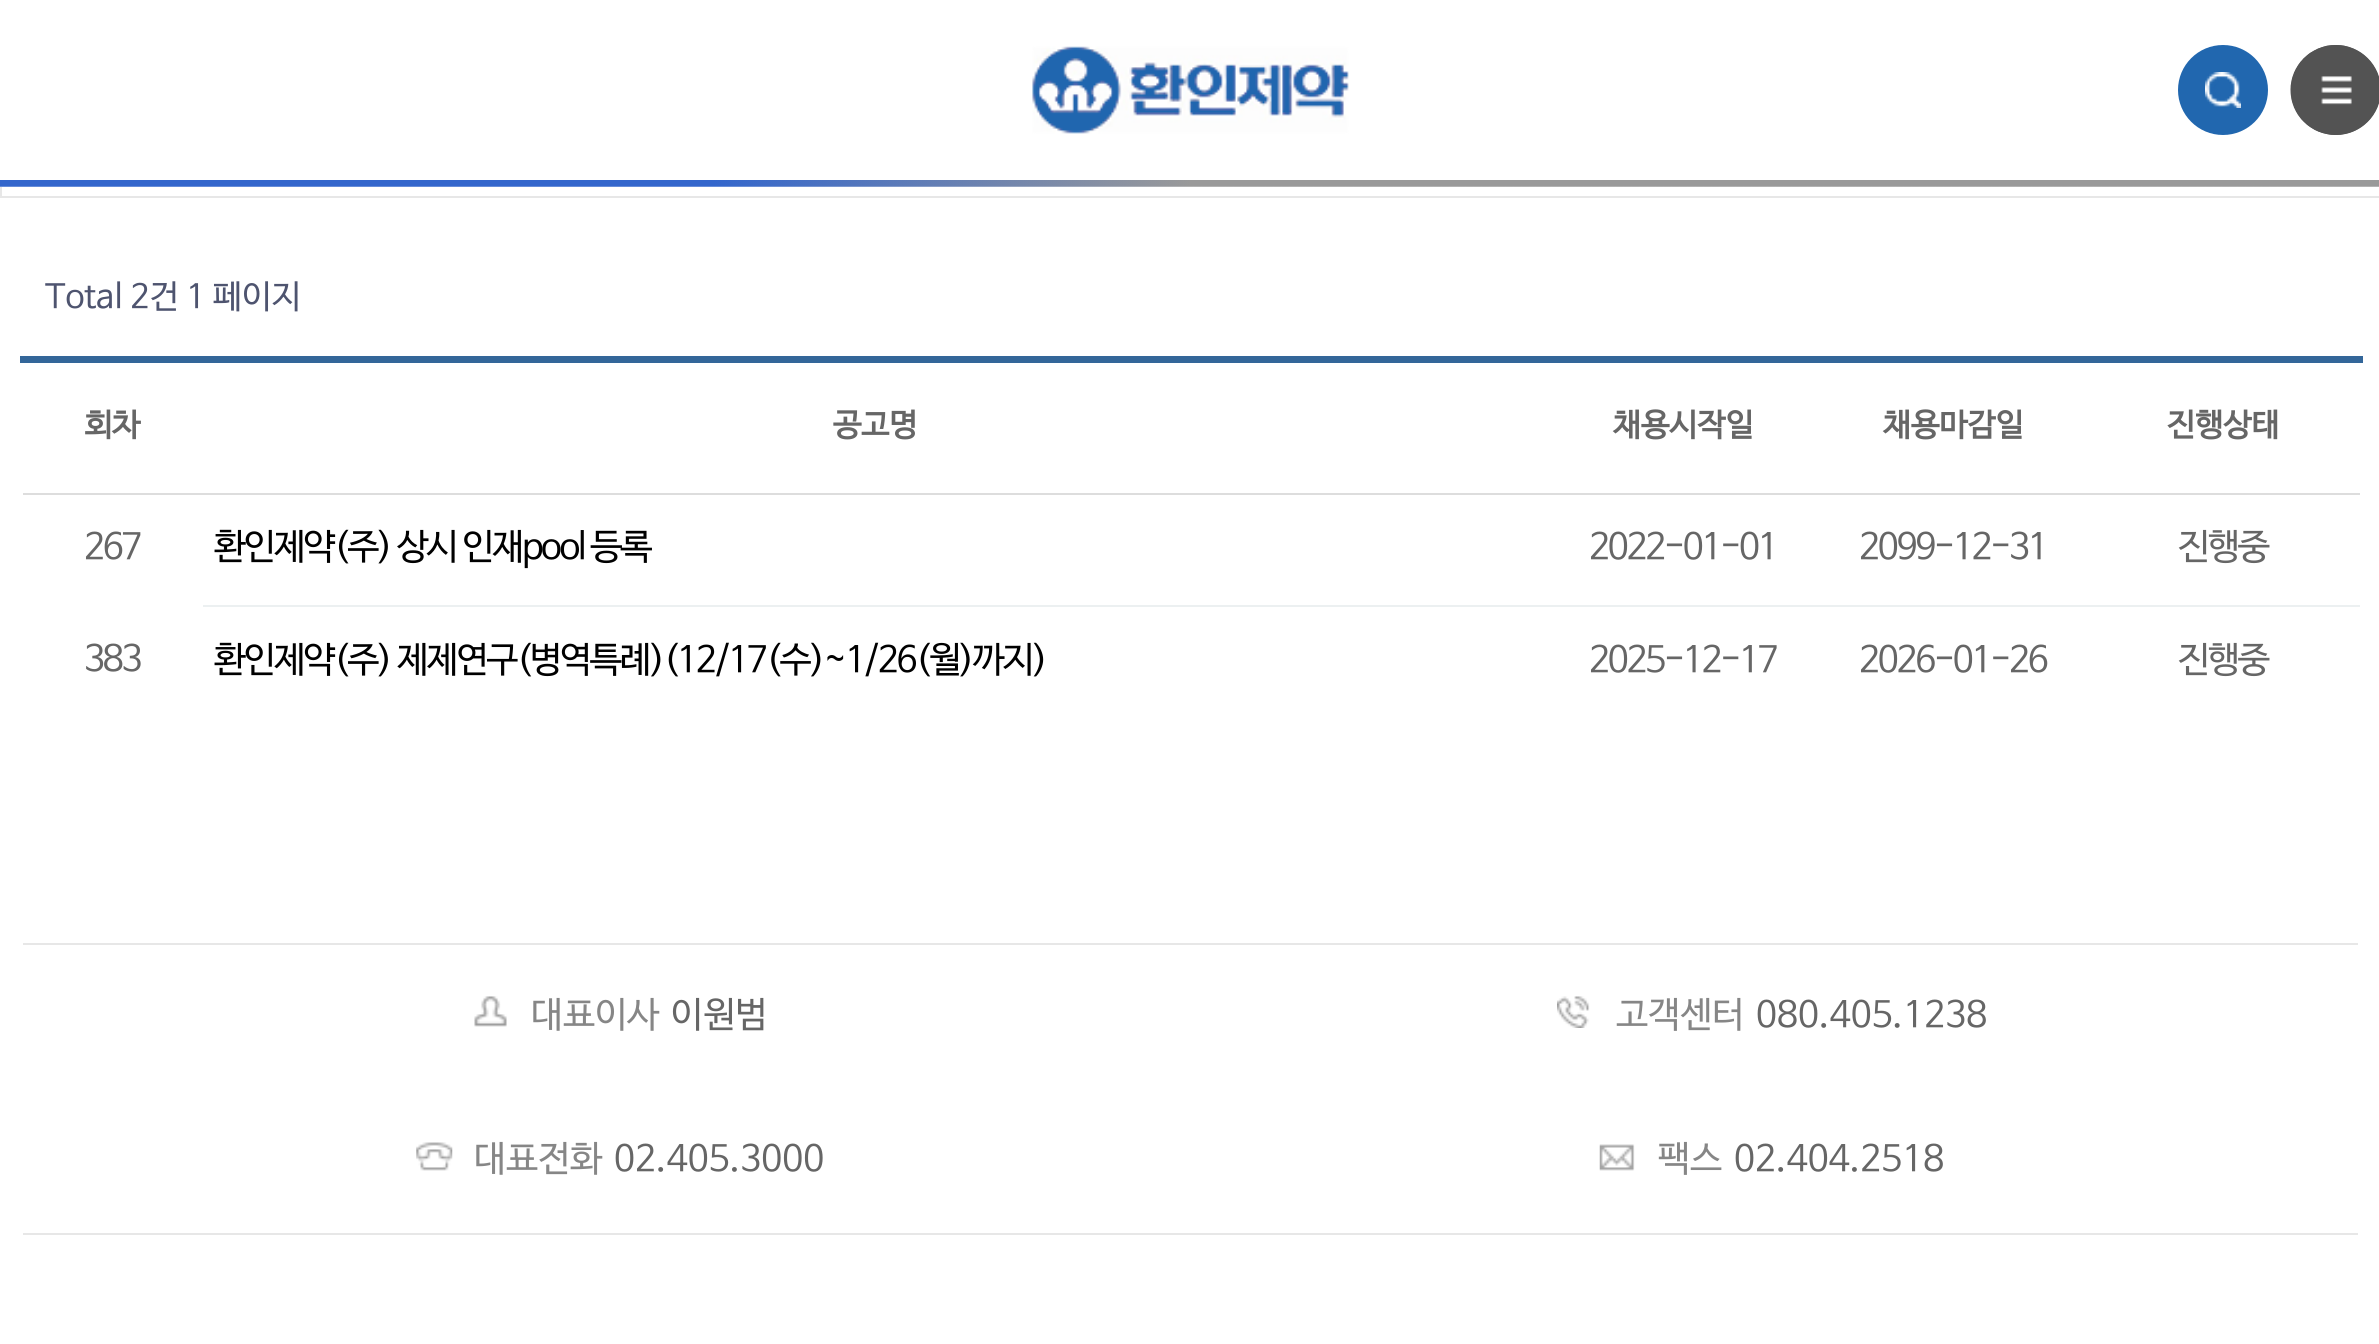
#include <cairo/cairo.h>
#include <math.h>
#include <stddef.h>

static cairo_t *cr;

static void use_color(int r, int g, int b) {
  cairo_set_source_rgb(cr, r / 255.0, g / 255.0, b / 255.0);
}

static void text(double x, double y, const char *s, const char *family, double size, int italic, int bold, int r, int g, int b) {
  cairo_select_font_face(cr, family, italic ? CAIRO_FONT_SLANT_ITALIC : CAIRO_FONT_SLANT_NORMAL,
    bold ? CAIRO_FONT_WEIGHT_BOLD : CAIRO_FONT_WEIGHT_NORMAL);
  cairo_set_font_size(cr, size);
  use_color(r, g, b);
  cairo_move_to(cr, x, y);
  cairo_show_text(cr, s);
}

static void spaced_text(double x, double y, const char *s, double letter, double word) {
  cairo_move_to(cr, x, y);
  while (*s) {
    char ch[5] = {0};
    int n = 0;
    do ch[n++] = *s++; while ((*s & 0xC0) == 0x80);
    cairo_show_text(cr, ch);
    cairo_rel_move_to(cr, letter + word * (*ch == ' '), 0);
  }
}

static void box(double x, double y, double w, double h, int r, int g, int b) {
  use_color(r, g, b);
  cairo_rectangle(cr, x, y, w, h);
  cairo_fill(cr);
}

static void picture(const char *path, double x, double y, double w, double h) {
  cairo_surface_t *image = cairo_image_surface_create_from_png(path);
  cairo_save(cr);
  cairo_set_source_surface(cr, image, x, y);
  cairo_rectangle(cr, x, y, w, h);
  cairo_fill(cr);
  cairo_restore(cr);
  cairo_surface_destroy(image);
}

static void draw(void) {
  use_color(255, 255, 255);
  cairo_paint(cr);
  cairo_rectangle(cr, 1, -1, 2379, 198);
  use_color(231, 231, 231);
  cairo_stroke(cr);
  box(0, 0, 2, 187, 255, 255, 255);
  picture("img_01.png", 0, 180, 2379, 7);
  picture("img_02.png", 1032, 46, 317, 88);
  use_color(33, 103, 175);
  cairo_arc(cr, 2223, 90, 45, 0, 2 * M_PI);
  cairo_fill(cr);
  picture("img_03.png", 2205, 72, 36, 36);
  use_color(83, 83, 83);
  cairo_arc(cr, 2336, 90, 45, 0, 2 * M_PI);
  cairo_fill(cr);
  picture("img_04.png", 2290, 45, 89, 90);
  box(23, 493, 2337, 2, 221, 221, 221);
  box(20, 356, 2343, 7, 51, 102, 153);
  box(203, 605, 2157, 2, 236, 240, 241);
  box(23, 943, 2335, 2, 231, 231, 231);
  box(23, 1233, 2335, 2, 231, 231, 231);
  picture("img_05.png", 474, 996, 33, 31);
  picture("img_06.png", 1557, 996, 33, 32);
  picture("img_07.png", 416, 1142, 37, 29);
  picture("img_08.png", 1599, 1144, 36, 27);
  text(45, 307, "Total 2건 1 페이지", "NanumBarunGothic", 33, 0, 0, 78, 84, 111);
  text(84, 435, "회차", "NanumBarunGothic", 31.5, 0, 1, 102, 102, 102);
  text(833, 435, "공고명", "NanumBarunGothic", 31.5, 0, 1, 102, 102, 102);
  text(1613, 435, "채용시작일", "NanumBarunGothic", 31.5, 0, 1, 102, 102, 102);
  text(1883, 435, "채용마감일", "NanumBarunGothic", 31.5, 0, 1, 102, 102, 102);
  text(2167, 435, "진행상태", "NanumBarunGothic", 31.5, 0, 1, 102, 102, 102);
  cairo_select_font_face(cr, "NanumBarunGothic", CAIRO_FONT_SLANT_NORMAL, CAIRO_FONT_WEIGHT_NORMAL);
  cairo_set_font_size(cr, 36);
  spaced_text(84, 558, "267", -2.25, 0);
  use_color(0, 0, 0);
  spaced_text(214, 558, "환인제약(주) 상시 인재pool 등록", -2.25, 0);
  use_color(102, 102, 102);
  spaced_text(1589, 558, "2022-01-01", -2.25, 0);
  spaced_text(1859, 558, "2099-12-31", -2.25, 0);
  spaced_text(2178, 558, "진행중", -2.25, 0);
  spaced_text(84, 670, "383", -2.25, 0);
  use_color(0, 0, 0);
  spaced_text(214, 671, "환인제약(주) 제제연구(병역특례)(12/17(수)~1/26(월)까지)", -2.25, 0);
  use_color(102, 102, 102);
  spaced_text(1589, 671, "2025-12-17", -2.25, 0);
  spaced_text(1859, 671, "2026-01-26", -2.25, 0);
  spaced_text(2178, 671, "진행중", -2.25, 0);
  text(531, 1026, "대표이사", "NanumBarunGothic", 36, 0, 0, 134, 134, 134);
  text(671, 1026, "이원범", "NanumBarunGothic", 36, 0, 0, 102, 102, 102);
  text(1616, 1026, "고객센터", "NanumBarunGothic", 36, 0, 0, 134, 134, 134);
  text(1756, 1026, "080.405.1238", "NanumBarunGothic", 36, 0, 0, 102, 102, 102);
  text(474, 1170, "대표전화", "NanumBarunGothic", 36, 0, 0, 134, 134, 134);
  text(614, 1170, "02.405.3000", "NanumBarunGothic", 36, 0, 0, 102, 102, 102);
  text(1658, 1170, "팩스", "NanumBarunGothic", 36, 0, 0, 134, 134, 134);
  text(1734, 1170, "02.404.2518", "NanumBarunGothic", 36, 0, 0, 102, 102, 102);
}

int main(void) {
  cairo_surface_t *surface = cairo_image_surface_create(CAIRO_FORMAT_RGB24, 2379, 1344);
  cr = cairo_create(surface);
  cairo_font_options_t *options = cairo_font_options_create();
  cairo_font_options_set_hint_metrics(options, CAIRO_HINT_METRICS_OFF);
  cairo_font_options_set_hint_style(options, CAIRO_HINT_STYLE_NONE);
  cairo_set_font_options(cr, options);
  cairo_set_miter_limit(cr, 4);
  draw();
  cairo_surface_write_to_png(surface, "out.png");
  cairo_font_options_destroy(options);
  cairo_destroy(cr);
  cairo_surface_destroy(surface);
  return 0;
}
